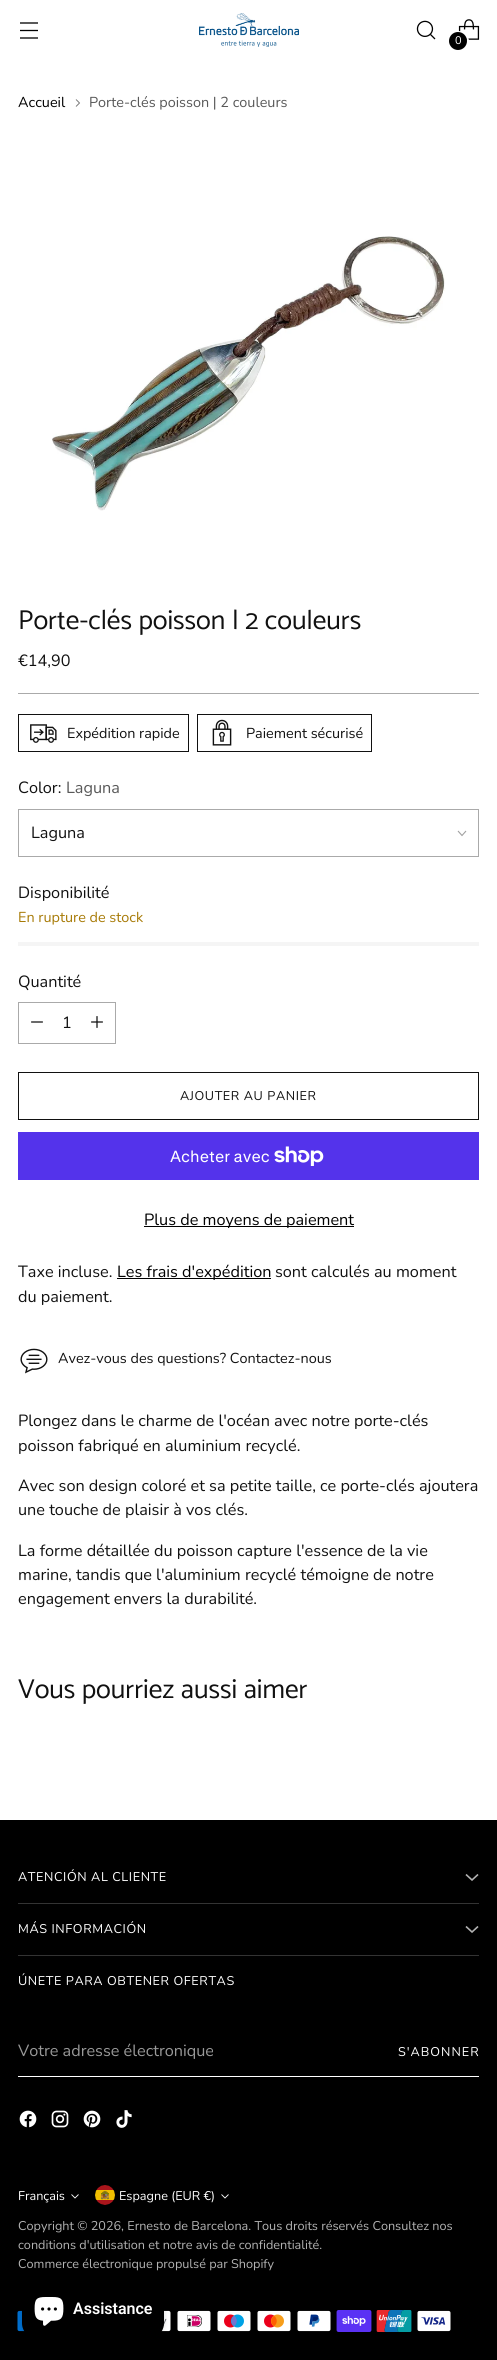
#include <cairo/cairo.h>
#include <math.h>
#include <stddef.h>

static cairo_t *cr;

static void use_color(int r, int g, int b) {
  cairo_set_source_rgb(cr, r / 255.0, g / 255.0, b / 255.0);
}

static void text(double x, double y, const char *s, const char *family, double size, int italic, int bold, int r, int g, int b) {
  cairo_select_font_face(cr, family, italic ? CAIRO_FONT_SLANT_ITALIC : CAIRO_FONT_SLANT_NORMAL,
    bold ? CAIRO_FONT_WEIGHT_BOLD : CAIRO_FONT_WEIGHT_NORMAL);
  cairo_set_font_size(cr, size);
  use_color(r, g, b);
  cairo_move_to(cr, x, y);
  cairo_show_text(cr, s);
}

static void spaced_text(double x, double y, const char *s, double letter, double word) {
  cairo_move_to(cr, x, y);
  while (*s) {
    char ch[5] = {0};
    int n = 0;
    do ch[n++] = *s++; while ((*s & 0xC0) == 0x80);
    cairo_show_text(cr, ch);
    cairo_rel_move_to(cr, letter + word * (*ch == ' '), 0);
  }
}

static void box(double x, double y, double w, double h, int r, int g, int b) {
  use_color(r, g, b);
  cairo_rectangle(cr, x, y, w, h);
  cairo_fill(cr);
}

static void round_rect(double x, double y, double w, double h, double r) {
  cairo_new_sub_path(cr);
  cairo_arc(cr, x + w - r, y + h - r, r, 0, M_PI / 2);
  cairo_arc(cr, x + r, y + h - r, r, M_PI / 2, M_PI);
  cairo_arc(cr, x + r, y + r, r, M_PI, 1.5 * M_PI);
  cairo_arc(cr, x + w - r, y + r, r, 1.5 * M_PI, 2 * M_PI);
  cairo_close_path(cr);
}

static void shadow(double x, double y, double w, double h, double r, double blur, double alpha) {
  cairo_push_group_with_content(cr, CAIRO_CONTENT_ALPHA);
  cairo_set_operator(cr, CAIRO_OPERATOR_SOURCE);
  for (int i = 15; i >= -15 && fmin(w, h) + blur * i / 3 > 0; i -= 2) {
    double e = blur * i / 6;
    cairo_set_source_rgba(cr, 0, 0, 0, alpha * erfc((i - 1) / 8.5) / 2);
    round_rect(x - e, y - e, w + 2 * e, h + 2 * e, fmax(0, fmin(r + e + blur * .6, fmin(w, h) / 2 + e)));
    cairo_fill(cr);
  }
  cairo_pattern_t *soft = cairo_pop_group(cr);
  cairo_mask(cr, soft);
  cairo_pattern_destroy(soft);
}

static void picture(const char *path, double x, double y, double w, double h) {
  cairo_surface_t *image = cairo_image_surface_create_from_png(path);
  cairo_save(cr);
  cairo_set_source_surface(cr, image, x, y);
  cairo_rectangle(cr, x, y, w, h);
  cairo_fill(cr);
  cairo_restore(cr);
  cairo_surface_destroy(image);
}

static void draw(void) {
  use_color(255, 255, 255);
  cairo_paint(cr);
  cairo_new_path(cr);
  cairo_move_to(cr, 20, 30.5);
  cairo_line_to(cr, 38, 30.5);
  cairo_move_to(cr, 20, 23);
  cairo_line_to(cr, 38, 23);
  cairo_move_to(cr, 20, 38);
  cairo_line_to(cr, 38, 38);
  use_color(0, 0, 0);
  cairo_set_line_width(cr, 1.3);
  cairo_stroke(cr);
  picture("img_01.png", 199, 13, 100, 34);
  picture("img_02.png", 416, 20, 20, 20);
  picture("img_03.png", 458, 19, 22, 21);
  cairo_arc(cr, 458.5, 41.5, 9.5, 0, 2 * M_PI);
  use_color(255, 255, 255);
  cairo_set_line_width(cr, 2);
  cairo_stroke(cr);
  use_color(0, 0, 0);
  cairo_arc(cr, 458, 41, 9, 0, 2 * M_PI);
  cairo_fill(cr);
  cairo_new_path(cr);
  cairo_move_to(cr, 76, 106.5);
  cairo_line_to(cr, 79.5, 103);
  cairo_line_to(cr, 76, 99.5);
  use_color(112, 112, 112);
  cairo_set_line_width(cr, 0.9);
  cairo_stroke(cr);
  picture("img_04.png", 52, 236, 394, 275);
  box(18, 693, 461, 1, 170, 170, 170);
  cairo_rectangle(cr, 18.5, 714.5, 170, 37);
  use_color(17, 17, 17);
  cairo_set_line_width(cr, 1);
  cairo_stroke(cr);
  picture("img_05.png", 30, 724, 27, 19);
  cairo_rectangle(cr, 197.5, 714.5, 174, 37);
  cairo_stroke(cr);
  picture("img_06.png", 212, 719, 20, 27);
  cairo_rectangle(cr, 18.5, 809.5, 460, 47);
  use_color(170, 170, 170);
  cairo_stroke(cr);
  cairo_new_path(cr);
  cairo_move_to(cr, 458, 831);
  cairo_line_to(cr, 462, 835.5);
  cairo_line_to(cr, 466, 831);
  use_color(160, 160, 160);
  cairo_set_line_width(cr, 1.1);
  cairo_stroke(cr);
  box(18, 942, 461, 4, 245, 245, 245);
  cairo_rectangle(cr, 18.5, 1002.5, 97, 41);
  use_color(170, 170, 170);
  cairo_set_line_width(cr, 1);
  cairo_stroke(cr);
  picture("img_07.png", 31, 1021, 12, 2);
  picture("img_08.png", 91, 1016, 12, 12);
  cairo_rectangle(cr, 18.5, 1072.5, 460, 47);
  use_color(17, 17, 17);
  cairo_stroke(cr);
  box(18, 1132, 461, 48, 84, 51, 235);
  picture("img_09.png", 274, 1146, 50, 20);
  box(144, 1226, 210, 1, 0, 0, 0);
  box(117, 1278, 154, 1, 0, 0, 0);
  picture("img_10.png", 20, 1348, 28, 26);
  box(0, 1820, 497, 540, 0, 0, 0);
  box(18, 1903, 461, 1, 51, 51, 51);
  cairo_new_path(cr);
  cairo_move_to(cr, 466, 1874.5);
  cairo_line_to(cr, 472, 1880);
  cairo_line_to(cr, 478, 1874.5);
  cairo_move_to(cr, 466, 1926.5);
  cairo_line_to(cr, 472, 1932);
  cairo_line_to(cr, 478, 1926.5);
  use_color(179, 179, 179);
  cairo_set_line_width(cr, 1.6);
  cairo_stroke(cr);
  box(18, 1955, 461, 1, 51, 51, 51);
  box(18, 2076, 461, 1, 255, 255, 255);
  picture("img_11.png", 19, 2110, 18, 18);
  picture("img_12.png", 51, 2110, 18, 18);
  picture("img_13.png", 83, 2110, 18, 18);
  picture("img_14.png", 116, 2110, 16, 18);
  cairo_new_path(cr);
  cairo_move_to(cr, 71.5, 2194.5);
  cairo_line_to(cr, 75, 2198);
  cairo_line_to(cr, 78.5, 2194.5);
  cairo_set_line_width(cr, 0.9);
  cairo_stroke(cr);
  picture("img_15.png", 95, 2185, 20, 20);
  cairo_new_path(cr);
  cairo_move_to(cr, 221.5, 2194.5);
  cairo_line_to(cr, 225, 2198);
  cairo_line_to(cr, 228.5, 2194.5);
  cairo_stroke(cr);
  picture("img_16.png", 17, 2310, 8, 22);
  picture("img_17.png", 161, 2310, 10, 22);
  picture("img_18.png", 177, 2310, 34, 22);
  picture("img_19.png", 217, 2310, 34, 22);
  picture("img_20.png", 257, 2310, 34, 22);
  picture("img_21.png", 297, 2310, 34, 22);
  picture("img_22.png", 336, 2310, 36, 22);
  picture("img_23.png", 376, 2310, 36, 22);
  picture("img_24.png", 417, 2310, 34, 22);
  use_color(0, 0, 0);
  shadow(22, 2279, 142, 60, 16, 2.5, 0.15);
  use_color(0, 0, 0);
  round_rect(22, 2279, 142, 60, 16);
  cairo_fill(cr);
  picture("img_25.png", 34, 2297, 30, 29);
  text(455, 44, "0", "Nunito", 11, 0, 0, 255, 255, 255);
  text(18, 107, "Accueil", "Nunito", 14.4, 0, 0, 0, 0, 0);
  text(89, 107, "Porte-clés poisson | 2 couleurs", "Nunito", 14.4, 0, 0, 88, 88, 88);
  text(18, 629, "Porte-clés poisson | 2 couleurs", "Catamaran", 27.4, 0, 0, 17, 17, 17);
  text(18, 666, "€14,90", "Nunito", 16.25, 0, 0, 17, 17, 17);
  text(67, 738, "Expédition rapide", "Nunito", 14.4, 0, 0, 17, 17, 17);
  text(246, 738, "Paiement sécurisé", "Nunito", 14.4, 0, 0, 17, 17, 17);
  text(18, 793, "Color:", "Nunito", 16.25, 0, 0, 17, 17, 17);
  text(66, 793, "Laguna", "Nunito", 16.25, 0, 0, 88, 88, 88);
  text(31, 838, "Laguna", "Nunito", 16.25, 0, 0, 17, 17, 17);
  text(18, 898, "Disponibilité", "Nunito", 16.25, 0, 0, 17, 17, 17);
  text(18, 922, "En rupture de stock", "Nunito", 14.4, 0, 0, 167, 122, 6);
  text(18, 987, "Quantité", "Nunito", 16.25, 0, 0, 17, 17, 17);
  text(62, 1028, "1", "Nunito", 16.25, 0, 0, 17, 17, 17);
  cairo_set_font_size(cr, 12.65);
  spaced_text(180, 1100, "AJOUTER AU PANIER", 0.6, 0);
  text(170, 1162, "Acheter avec", "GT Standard", 16, 0, 0, 255, 255, 255);
  text(144, 1225, "Plus de moyens de paiement", "Nunito", 16.25, 0, 0, 0, 0, 0);
  text(18, 1277, "Taxe incluse.", "Nunito", 16.25, 0, 0, 17, 17, 17);
  text(117, 1277, "Les frais d'expédition", "Nunito", 16.25, 0, 0, 0, 0, 0);
  text(275, 1277, "sont calculés au moment", "Nunito", 16.25, 0, 0, 17, 17, 17);
  text(18, 1302, "du paiement.", "Nunito", 16.25, 0, 0, 17, 17, 17);
  text(58, 1363, "Avez-vous des questions? Contactez-nous", "Nunito", 14.4, 0, 0, 17, 17, 17);
  text(18, 1426, "Plongez dans le charme de l'océan avec notre porte-clés", "Nunito", 16.25, 0, 0, 17, 17, 17);
  text(18, 1451, "poisson fabriqué en aluminium recyclé.", "Nunito", 16.25, 0, 0, 17, 17, 17);
  text(18, 1491, "Avec son design coloré et sa petite taille, ce porte-clés ajoutera", "Nunito", 16.25, 0, 0, 17, 17, 17);
  text(18, 1515, "une touche de plaisir à vos clés.", "Nunito", 16.25, 0, 0, 17, 17, 17);
  text(18, 1556, "La forme détaillée du poisson capture l'essence de la vie", "Nunito", 16.25, 0, 0, 17, 17, 17);
  text(18, 1580, "marine, tandis que l'aluminium recyclé témoigne de notre", "Nunito", 16.25, 0, 0, 17, 17, 17);
  text(18, 1604, "engagement envers la durabilité.", "Nunito", 16.25, 0, 0, 17, 17, 17);
  text(18, 1698, "Vous pourriez aussi aimer", "Catamaran", 27.4, 0, 0, 17, 17, 17);
  cairo_select_font_face(cr, "Nunito", CAIRO_FONT_SLANT_NORMAL, CAIRO_FONT_WEIGHT_NORMAL);
  cairo_set_font_size(cr, 12.65);
  use_color(255, 255, 255);
  spaced_text(18, 1881, "ATENCIÓN AL CLIENTE", 0.6, 0);
  spaced_text(18, 1933, "MÁS INFORMACIÓN", 0.6, 0);
  spaced_text(18, 1985, "ÚNETE PARA OBTENER OFERTAS", 0.6, 0);
  text(18, 2056, "Votre adresse électronique", "Nunito", 16.25, 0, 0, 153, 153, 153);
  cairo_set_font_size(cr, 12.65);
  use_color(255, 255, 255);
  spaced_text(398, 2056, "S'ABONNER", 1, 0);
  text(18, 2200, "Français", "Nunito", 12.65, 0, 0, 255, 255, 255);
  text(119, 2200, "Espagne (EUR €)", "Nunito", 12.65, 0, 0, 255, 255, 255);
  text(18, 2230, "Copyright © 2026, Ernesto de Barcelona. Tous droits réservés Consultez nos", "Nunito", 12.65, 0, 0, 179, 179, 179);
  text(18, 2249, "conditions d'utilisation et notre avis de confidentialité.", "Nunito", 12.65, 0, 0, 179, 179, 179);
  text(18, 2268, "Commerce électronique propulsé par Shopify", "Nunito", 12.65, 0, 0, 179, 179, 179);
  text(73, 2314, "Assistance", "Roboto SemiBold", 16, 0, 0, 255, 255, 255);
}

int main(void) {
  cairo_surface_t *surface = cairo_image_surface_create(CAIRO_FORMAT_RGB24, 497, 2360);
  cr = cairo_create(surface);
  cairo_font_options_t *options = cairo_font_options_create();
  cairo_font_options_set_hint_metrics(options, CAIRO_HINT_METRICS_OFF);
  cairo_font_options_set_hint_style(options, CAIRO_HINT_STYLE_NONE);
  cairo_set_font_options(cr, options);
  cairo_set_miter_limit(cr, 4);
  draw();
  cairo_surface_write_to_png(surface, "out.png");
  cairo_font_options_destroy(options);
  cairo_destroy(cr);
  cairo_surface_destroy(surface);
  return 0;
}
